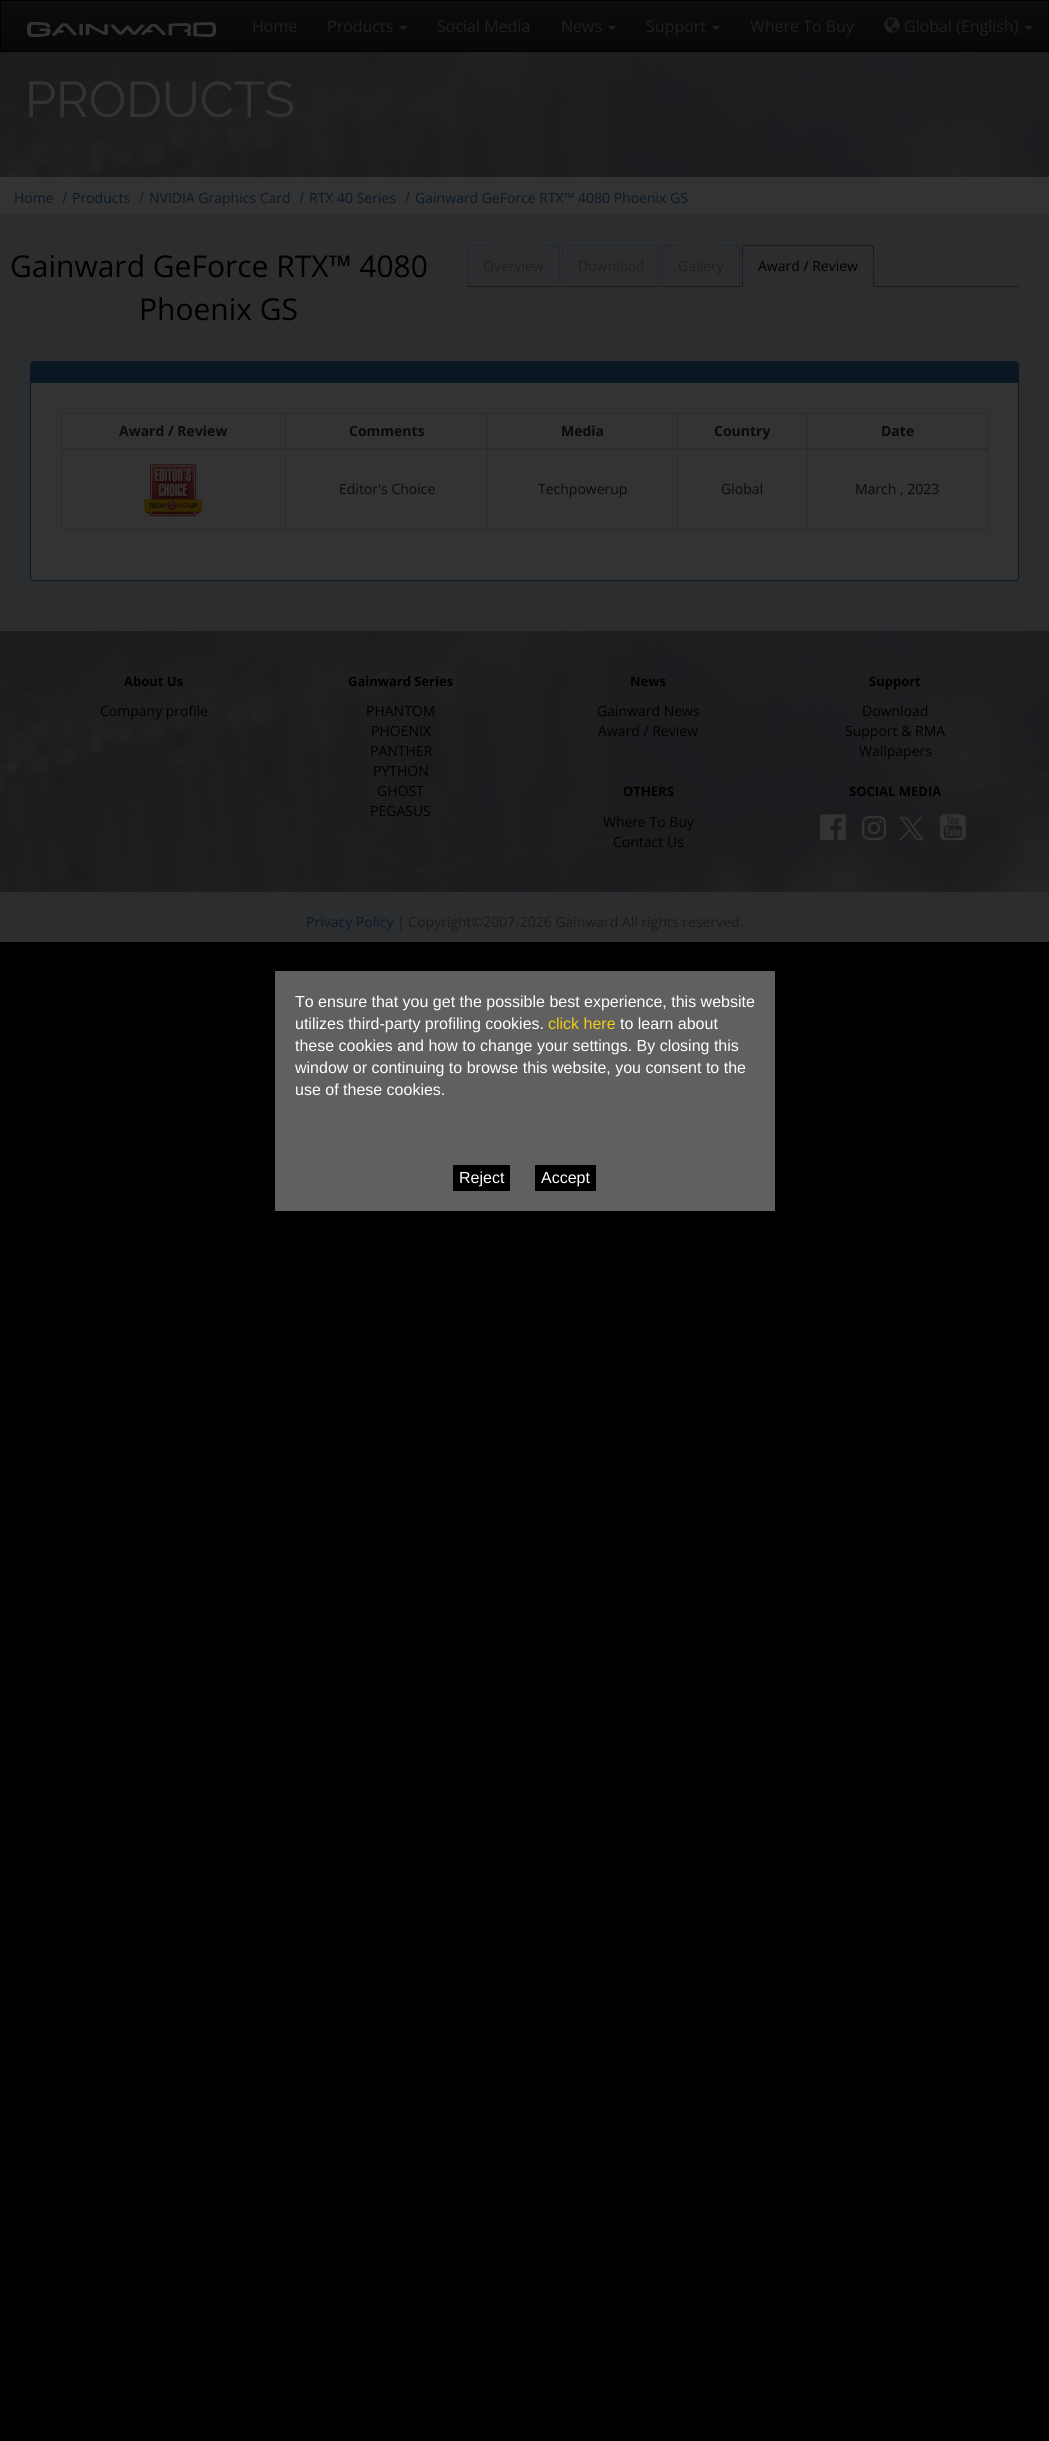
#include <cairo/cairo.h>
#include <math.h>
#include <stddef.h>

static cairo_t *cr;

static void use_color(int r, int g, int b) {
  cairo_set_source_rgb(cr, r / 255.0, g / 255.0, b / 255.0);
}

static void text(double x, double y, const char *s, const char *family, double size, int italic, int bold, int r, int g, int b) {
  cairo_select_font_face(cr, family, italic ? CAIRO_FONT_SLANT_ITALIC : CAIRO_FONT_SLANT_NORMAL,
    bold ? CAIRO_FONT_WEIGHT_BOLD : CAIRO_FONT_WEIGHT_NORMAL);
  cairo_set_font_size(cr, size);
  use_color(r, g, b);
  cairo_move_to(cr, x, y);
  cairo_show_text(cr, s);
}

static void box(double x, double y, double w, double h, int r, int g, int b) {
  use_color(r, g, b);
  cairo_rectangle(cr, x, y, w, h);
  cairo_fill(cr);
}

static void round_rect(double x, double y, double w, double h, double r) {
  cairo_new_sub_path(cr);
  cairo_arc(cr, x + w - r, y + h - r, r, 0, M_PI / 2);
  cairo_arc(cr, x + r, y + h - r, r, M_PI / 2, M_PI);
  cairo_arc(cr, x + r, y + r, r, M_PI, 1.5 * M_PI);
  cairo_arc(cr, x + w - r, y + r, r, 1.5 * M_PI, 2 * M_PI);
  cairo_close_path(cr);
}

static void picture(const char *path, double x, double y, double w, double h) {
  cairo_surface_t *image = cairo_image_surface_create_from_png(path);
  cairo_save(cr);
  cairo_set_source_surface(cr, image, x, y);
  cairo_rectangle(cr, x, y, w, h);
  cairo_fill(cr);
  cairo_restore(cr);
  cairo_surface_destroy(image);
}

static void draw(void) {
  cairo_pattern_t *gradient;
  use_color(0, 0, 0);
  cairo_paint(cr);
  gradient = cairo_pattern_create_linear(525, 1, 525, 51);
  cairo_pattern_add_color_stop_rgba(gradient, 0, 0.047, 0.047, 0.047, 1);
  cairo_pattern_add_color_stop_rgba(gradient, 1, 0.027, 0.027, 0.027, 1);
  cairo_set_source(cr, gradient);
  cairo_pattern_destroy(gradient);
  cairo_rectangle(cr, 1, 1, 1047, 50);
  cairo_fill(cr);
  picture("img_01.png", 27, 22, 189, 15);
  use_color(31, 31, 31);
  cairo_new_path(cr);
  cairo_move_to(cr, 399, 26);
  cairo_line_to(cr, 407, 26);
  cairo_line_to(cr, 403, 30);
  cairo_close_path(cr);
  cairo_fill(cr);
  cairo_new_path(cr);
  cairo_move_to(cr, 608, 26);
  cairo_line_to(cr, 616, 26);
  cairo_line_to(cr, 612, 30);
  cairo_close_path(cr);
  cairo_fill(cr);
  cairo_new_path(cr);
  cairo_move_to(cr, 712, 26);
  cairo_line_to(cr, 720, 26);
  cairo_line_to(cr, 716, 30);
  cairo_close_path(cr);
  cairo_fill(cr);
  picture("img_02.png", 884, 17, 16, 16);
  cairo_new_path(cr);
  cairo_move_to(cr, 1025, 26);
  cairo_line_to(cr, 1033, 26);
  cairo_line_to(cr, 1029, 30);
  cairo_close_path(cr);
  cairo_fill(cr);
  picture("img_03.png", 0, 52, 1049, 125);
  box(0, 177, 1049, 38, 51, 51, 51);
  use_color(10, 24, 37);
  cairo_new_path(cr);
  cairo_move_to(cr, 65.5, 192);
  cairo_line_to(cr, 66.5, 192.5);
  cairo_line_to(cr, 64, 203);
  cairo_line_to(cr, 63, 203);
  cairo_close_path(cr);
  cairo_fill(cr);
  cairo_new_path(cr);
  cairo_move_to(cr, 142.5, 192);
  cairo_line_to(cr, 143.5, 192.5);
  cairo_line_to(cr, 140.5, 203);
  cairo_line_to(cr, 139.5, 203);
  cairo_close_path(cr);
  cairo_fill(cr);
  cairo_new_path(cr);
  cairo_move_to(cr, 302.5, 192);
  cairo_line_to(cr, 303.5, 192.5);
  cairo_line_to(cr, 301, 203);
  cairo_line_to(cr, 300, 203);
  cairo_close_path(cr);
  cairo_fill(cr);
  cairo_new_path(cr);
  cairo_move_to(cr, 408.5, 192);
  cairo_line_to(cr, 409.5, 192.5);
  cairo_line_to(cr, 406.5, 203);
  cairo_line_to(cr, 405.5, 203);
  cairo_close_path(cr);
  cairo_fill(cr);
  box(0, 215, 1049, 416, 43, 45, 47);
  box(560, 286, 459, 1, 27, 27, 27);
  use_color(37, 40, 43);
  cairo_new_path(cr);
  cairo_move_to(cr, 471, 245);
  cairo_line_to(cr, 468, 246);
  cairo_line_to(cr, 469, 247);
  cairo_line_to(cr, 471, 246);
  cairo_line_to(cr, 485, 246);
  cairo_curve_to(cr, 493, 246, 556, 245, 558, 247);
  cairo_line_to(cr, 559, 246);
  cairo_line_to(cr, 556, 245);
  cairo_close_path(cr);
  cairo_fill(cr);
  cairo_new_path(cr);
  cairo_move_to(cr, 560, 287);
  cairo_line_to(cr, 560, 249);
  cairo_curve_to(cr, 560, 248, 560, 247, 559, 246);
  cairo_line_to(cr, 558, 247);
  cairo_curve_to(cr, 560, 249, 559, 281, 559, 286);
  cairo_close_path(cr);
  cairo_fill(cr);
  use_color(27, 27, 27);
  cairo_new_path(cr);
  cairo_move_to(cr, 560, 287);
  cairo_line_to(cr, 559, 286);
  cairo_line_to(cr, 468, 286);
  cairo_line_to(cr, 467, 287);
  cairo_close_path(cr);
  cairo_fill(cr);
  use_color(37, 40, 43);
  cairo_new_path(cr);
  cairo_move_to(cr, 467, 287);
  cairo_line_to(cr, 468, 286);
  cairo_curve_to(cr, 468, 281, 467, 249, 469, 247);
  cairo_line_to(cr, 468, 246);
  cairo_line_to(cr, 467, 249);
  cairo_close_path(cr);
  cairo_fill(cr);
  use_color(43, 45, 47);
  cairo_new_path(cr);
  cairo_move_to(cr, 566, 245);
  cairo_line_to(cr, 656, 245);
  cairo_curve_to(cr, 658, 245, 660, 247, 660, 249);
  cairo_line_to(cr, 660, 287);
  cairo_line_to(cr, 562, 287);
  cairo_line_to(cr, 562, 249);
  cairo_curve_to(cr, 562, 247, 564, 245, 566, 245);
  cairo_close_path(cr);
  cairo_fill(cr);
  use_color(37, 40, 43);
  cairo_new_path(cr);
  cairo_move_to(cr, 566, 245);
  cairo_line_to(cr, 563, 246);
  cairo_line_to(cr, 564, 247);
  cairo_line_to(cr, 566, 246);
  cairo_line_to(cr, 656, 246);
  cairo_line_to(cr, 658, 247);
  cairo_line_to(cr, 659, 246);
  cairo_line_to(cr, 656, 245);
  cairo_close_path(cr);
  cairo_fill(cr);
  cairo_new_path(cr);
  cairo_move_to(cr, 660, 287);
  cairo_line_to(cr, 660, 249);
  cairo_curve_to(cr, 660, 248, 660, 247, 659, 246);
  cairo_line_to(cr, 658, 247);
  cairo_curve_to(cr, 660, 249, 659, 281, 659, 286);
  cairo_close_path(cr);
  cairo_fill(cr);
  use_color(27, 27, 27);
  cairo_new_path(cr);
  cairo_move_to(cr, 660, 287);
  cairo_line_to(cr, 659, 286);
  cairo_line_to(cr, 563, 286);
  cairo_line_to(cr, 562, 287);
  cairo_close_path(cr);
  cairo_fill(cr);
  use_color(37, 40, 43);
  cairo_new_path(cr);
  cairo_move_to(cr, 562, 287);
  cairo_line_to(cr, 563, 286);
  cairo_curve_to(cr, 563, 281, 562, 249, 564, 247);
  cairo_line_to(cr, 563, 246);
  cairo_line_to(cr, 562, 249);
  cairo_close_path(cr);
  cairo_fill(cr);
  use_color(43, 45, 47);
  cairo_new_path(cr);
  cairo_move_to(cr, 666, 245);
  cairo_line_to(cr, 736, 245);
  cairo_curve_to(cr, 738, 245, 740, 247, 740, 249);
  cairo_line_to(cr, 740, 287);
  cairo_line_to(cr, 662, 287);
  cairo_line_to(cr, 662, 249);
  cairo_curve_to(cr, 662, 247, 664, 245, 666, 245);
  cairo_close_path(cr);
  cairo_fill(cr);
  use_color(37, 40, 43);
  cairo_new_path(cr);
  cairo_move_to(cr, 666, 245);
  cairo_line_to(cr, 663, 246);
  cairo_line_to(cr, 664, 247);
  cairo_curve_to(cr, 666, 245, 718, 246, 724, 246);
  cairo_line_to(cr, 736, 246);
  cairo_line_to(cr, 738, 247);
  cairo_line_to(cr, 739, 246);
  cairo_line_to(cr, 736, 245);
  cairo_close_path(cr);
  cairo_fill(cr);
  cairo_new_path(cr);
  cairo_move_to(cr, 740, 287);
  cairo_line_to(cr, 740, 249);
  cairo_curve_to(cr, 740, 248, 740, 247, 739, 246);
  cairo_line_to(cr, 738, 247);
  cairo_curve_to(cr, 740, 249, 739, 281, 739, 286);
  cairo_close_path(cr);
  cairo_fill(cr);
  use_color(27, 27, 27);
  cairo_new_path(cr);
  cairo_move_to(cr, 740, 287);
  cairo_line_to(cr, 739, 286);
  cairo_line_to(cr, 663, 286);
  cairo_line_to(cr, 662, 287);
  cairo_close_path(cr);
  cairo_fill(cr);
  use_color(37, 40, 43);
  cairo_new_path(cr);
  cairo_move_to(cr, 662, 287);
  cairo_line_to(cr, 663, 286);
  cairo_curve_to(cr, 663, 281, 662, 249, 664, 247);
  cairo_line_to(cr, 663, 246);
  cairo_line_to(cr, 662, 249);
  cairo_close_path(cr);
  cairo_fill(cr);
  use_color(43, 45, 47);
  cairo_new_path(cr);
  cairo_move_to(cr, 746, 245);
  cairo_line_to(cr, 870, 245);
  cairo_curve_to(cr, 872, 245, 874, 247, 874, 249);
  cairo_line_to(cr, 874, 287);
  cairo_line_to(cr, 742, 287);
  cairo_line_to(cr, 742, 249);
  cairo_curve_to(cr, 742, 247, 744, 245, 746, 245);
  cairo_close_path(cr);
  cairo_fill(cr);
  use_color(27, 27, 27);
  cairo_new_path(cr);
  cairo_move_to(cr, 746, 245);
  cairo_line_to(cr, 743, 246);
  cairo_line_to(cr, 744, 247);
  cairo_line_to(cr, 746, 246);
  cairo_line_to(cr, 870, 246);
  cairo_line_to(cr, 872, 247);
  cairo_line_to(cr, 873, 246);
  cairo_line_to(cr, 870, 245);
  cairo_close_path(cr);
  cairo_fill(cr);
  cairo_new_path(cr);
  cairo_move_to(cr, 874, 287);
  cairo_line_to(cr, 874, 249);
  cairo_curve_to(cr, 874, 248, 874, 247, 873, 246);
  cairo_line_to(cr, 872, 247);
  cairo_curve_to(cr, 874, 249, 873, 281, 873, 286);
  cairo_close_path(cr);
  cairo_fill(cr);
  use_color(43, 45, 47);
  cairo_new_path(cr);
  cairo_move_to(cr, 874, 287);
  cairo_line_to(cr, 873, 286);
  cairo_line_to(cr, 743, 286);
  cairo_line_to(cr, 742, 287);
  cairo_close_path(cr);
  cairo_fill(cr);
  use_color(27, 27, 27);
  cairo_new_path(cr);
  cairo_move_to(cr, 742, 287);
  cairo_line_to(cr, 743, 286);
  cairo_curve_to(cr, 743, 281, 742, 249, 744, 247);
  cairo_line_to(cr, 743, 246);
  cairo_line_to(cr, 742, 249);
  cairo_close_path(cr);
  cairo_fill(cr);
  use_color(51, 51, 51);
  round_rect(30.5, 361.5, 988, 219, 3.5);
  cairo_fill_preserve(cr);
  use_color(10, 24, 37);
  cairo_set_line_width(cr, 1);
  cairo_stroke(cr);
  cairo_new_path(cr);
  cairo_move_to(cr, 34, 362);
  cairo_line_to(cr, 1015, 362);
  cairo_curve_to(cr, 1016.5, 362, 1018, 363.5, 1018, 365);
  cairo_line_to(cr, 1018, 383);
  cairo_line_to(cr, 31, 383);
  cairo_line_to(cr, 31, 365);
  cairo_curve_to(cr, 31, 363.5, 32.5, 362, 34, 362);
  cairo_close_path(cr);
  cairo_fill(cr);
  gradient = cairo_pattern_create_linear(525, 362, 525, 382);
  cairo_pattern_add_color_stop_rgba(gradient, 0, 0.039, 0.094, 0.145, 1);
  cairo_pattern_add_color_stop_rgba(gradient, 1, 0.035, 0.086, 0.129, 1);
  cairo_set_source(cr, gradient);
  cairo_pattern_destroy(gradient);
  cairo_new_path(cr);
  cairo_move_to(cr, 34, 362);
  cairo_line_to(cr, 1015, 362);
  cairo_curve_to(cr, 1016.5, 362, 1018, 363.5, 1018, 365);
  cairo_line_to(cr, 1018, 382);
  cairo_line_to(cr, 31, 382);
  cairo_line_to(cr, 31, 365);
  cairo_curve_to(cr, 31, 363.5, 32.5, 362, 34, 362);
  cairo_close_path(cr);
  cairo_fill(cr);
  box(61, 413, 927, 1, 44, 44, 44);
  box(987, 413, 1, 117, 44, 44, 44);
  box(61, 529, 927, 1, 44, 44, 44);
  box(61, 413, 1, 117, 44, 44, 44);
  box(285, 413, 1, 117, 44, 44, 44);
  box(487, 413, 1, 117, 44, 44, 44);
  box(677, 413, 1, 117, 44, 44, 44);
  box(807, 413, 1, 117, 44, 44, 44);
  box(61, 448, 928, 2, 44, 44, 44);
  picture("img_04.png", 144, 463, 58, 54);
  picture("img_05.png", 0, 631, 1049, 261);
  picture("img_06.png", 820, 814, 26, 27);
  picture("img_07.png", 862, 816, 24, 24);
  picture("img_08.png", 899, 816, 25, 25);
  picture("img_09.png", 940, 814, 26, 27);
  box(0, 892, 1049, 50, 43, 45, 47);
  box(275, 971, 500, 240, 96, 96, 96);
  box(453, 1165, 57, 26, 0, 0, 0);
  box(535, 1165, 61, 26, 0, 0, 0);
  text(252, 32, "Home", "Open Sans", 16, 0, 0, 31, 31, 31);
  text(327, 32, "Products", "Open Sans", 16, 0, 0, 31, 31, 31);
  text(437, 32, "Social Media", "Open Sans", 16, 0, 0, 31, 31, 31);
  text(561, 32, "News", "Open Sans", 16, 0, 0, 31, 31, 31);
  text(646, 32, "Support", "Open Sans", 16, 0, 0, 31, 31, 31);
  text(750, 32, "Where To Buy", "Open Sans", 16, 0, 0, 31, 31, 31);
  text(904, 32, "Global (English)", "Open Sans", 16, 0, 0, 31, 31, 31);
  text(25, 117, "PRODUCTS", "Raleway Thin", 50, 0, 0, 51, 51, 51);
  text(14, 203, "Home", "Open Sans", 14, 0, 0, 10, 24, 37);
  text(72, 203, "Products", "Open Sans", 14, 0, 0, 10, 24, 37);
  text(149, 203, "NVIDIA Graphics Card", "Open Sans", 14, 0, 0, 10, 24, 37);
  text(309, 203, "RTX 40 Series", "Open Sans", 14, 0, 0, 10, 24, 37);
  text(415, 203, "Gainward GeForce RTX™ 4080 Phoenix GS", "Open Sans", 14, 0, 0, 10, 24, 37);
  text(10, 277, "Gainward GeForce RTX™ 4080", "Open Sans", 30, 0, 0, 0, 0, 0);
  text(139, 320, "Phoenix GS", "Open Sans", 30, 0, 0, 0, 0, 0);
  text(483, 271, "Overview", "Open Sans", 14, 0, 0, 31, 31, 31);
  text(578, 271, "Download", "Open Sans", 14, 0, 0, 31, 31, 31);
  text(678, 271, "Gallery", "Open Sans", 14, 0, 0, 31, 31, 31);
  text(758, 271, "Award / Review", "Open Sans", 14, 0, 0, 0, 0, 0);
  text(119, 436, "Award / Review", "Open Sans", 14, 0, 1, 10, 10, 10);
  text(349, 436, "Comments", "Open Sans", 14, 0, 1, 10, 10, 10);
  text(561, 436, "Media", "Open Sans", 14, 0, 1, 10, 10, 10);
  text(714, 436, "Country", "Open Sans", 14, 0, 1, 10, 10, 10);
  text(881, 436, "Date", "Open Sans", 14, 0, 1, 10, 10, 10);
  text(339, 494, "Editor's Choice", "Open Sans", 14, 0, 0, 10, 10, 10);
  text(538, 494, "Techpowerup", "Open Sans", 14, 0, 0, 10, 10, 10);
  text(721, 494, "Global", "Open Sans", 14, 0, 0, 10, 10, 10);
  text(855, 494, "March , 2023", "Open Sans", 14, 0, 0, 10, 10, 10);
  text(124, 686, "About Us", "Open Sans", 13, 0, 1, 0, 0, 0);
  text(100, 716, "Company profile", "Open Sans", 14, 0, 0, 0, 0, 0);
  text(348, 686, "Gainward Series", "Open Sans", 13, 0, 1, 0, 0, 0);
  text(366, 716, "PHANTOM", "Open Sans", 14, 0, 0, 0, 0, 0);
  text(371, 736, "PHOENIX", "Open Sans", 14, 0, 0, 0, 0, 0);
  text(370, 756, "PANTHER", "Open Sans", 14, 0, 0, 0, 0, 0);
  text(373, 776, "PYTHON", "Open Sans", 14, 0, 0, 0, 0, 0);
  text(377, 796, "GHOST", "Open Sans", 14, 0, 0, 0, 0, 0);
  text(370, 816, "PEGASUS", "Open Sans", 14, 0, 0, 0, 0, 0);
  text(630, 686, "News", "Open Sans", 13, 0, 1, 0, 0, 0);
  text(597, 716, "Gainward News", "Open Sans", 14, 0, 0, 0, 0, 0);
  text(598, 736, "Award / Review", "Open Sans", 14, 0, 0, 0, 0, 0);
  text(869, 686, "Support", "Open Sans", 13, 0, 1, 0, 0, 0);
  text(862, 716, "Download", "Open Sans", 14, 0, 0, 0, 0, 0);
  text(845, 736, "Support & RMA", "Open Sans", 14, 0, 0, 0, 0, 0);
  text(859, 756, "Wallpapers", "Open Sans", 14, 0, 0, 0, 0, 0);
  text(623, 796, "OTHERS", "Open Sans", 13, 0, 1, 0, 0, 0);
  text(603, 827, "Where To Buy", "Open Sans", 14, 0, 0, 0, 0, 0);
  text(613, 847, "Contact Us", "Open Sans", 14, 0, 0, 0, 0, 0);
  text(849, 796, "SOCIAL MEDIA", "Open Sans", 13, 0, 1, 0, 0, 0);
  text(306, 927, "Privacy Policy", "Open Sans", 14, 0, 0, 10, 24, 37);
  text(397, 927, "| Copyright©2007-2026 Gainward All rights reserved.", "Open Sans", 14, 0, 0, 25, 25, 25);
  text(295, 1007, "To ensure that you get the possible best experience, this website", "Liberation Sans", 16, 0, 0, 255, 255, 255);
  text(295, 1029, "utilizes third-party profiling cookies.", "Liberation Sans", 16, 0, 0, 255, 255, 255);
  text(548, 1029, "click here", "Liberation Sans", 16, 0, 0, 242, 201, 23);
  text(620, 1029, "to learn about", "Liberation Sans", 16, 0, 0, 255, 255, 255);
  text(295, 1051, "these cookies and how to change your settings. By closing this", "Liberation Sans", 16, 0, 0, 255, 255, 255);
  text(295, 1073, "window or continuing to browse this website, you consent to the", "Liberation Sans", 16, 0, 0, 255, 255, 255);
  text(295, 1095, "use of these cookies.", "Liberation Sans", 16, 0, 0, 255, 255, 255);
  text(459, 1183, "Reject", "Liberation Sans", 16, 0, 0, 255, 255, 255);
  text(541, 1183, "Accept", "Liberation Sans", 16, 0, 0, 255, 255, 255);
}

int main(void) {
  cairo_surface_t *surface = cairo_image_surface_create(CAIRO_FORMAT_RGB24, 1049, 2441);
  cr = cairo_create(surface);
  cairo_font_options_t *options = cairo_font_options_create();
  cairo_font_options_set_hint_metrics(options, CAIRO_HINT_METRICS_OFF);
  cairo_font_options_set_hint_style(options, CAIRO_HINT_STYLE_NONE);
  cairo_set_font_options(cr, options);
  cairo_set_miter_limit(cr, 4);
  draw();
  cairo_surface_write_to_png(surface, "out.png");
  cairo_font_options_destroy(options);
  cairo_destroy(cr);
  cairo_surface_destroy(surface);
  return 0;
}
